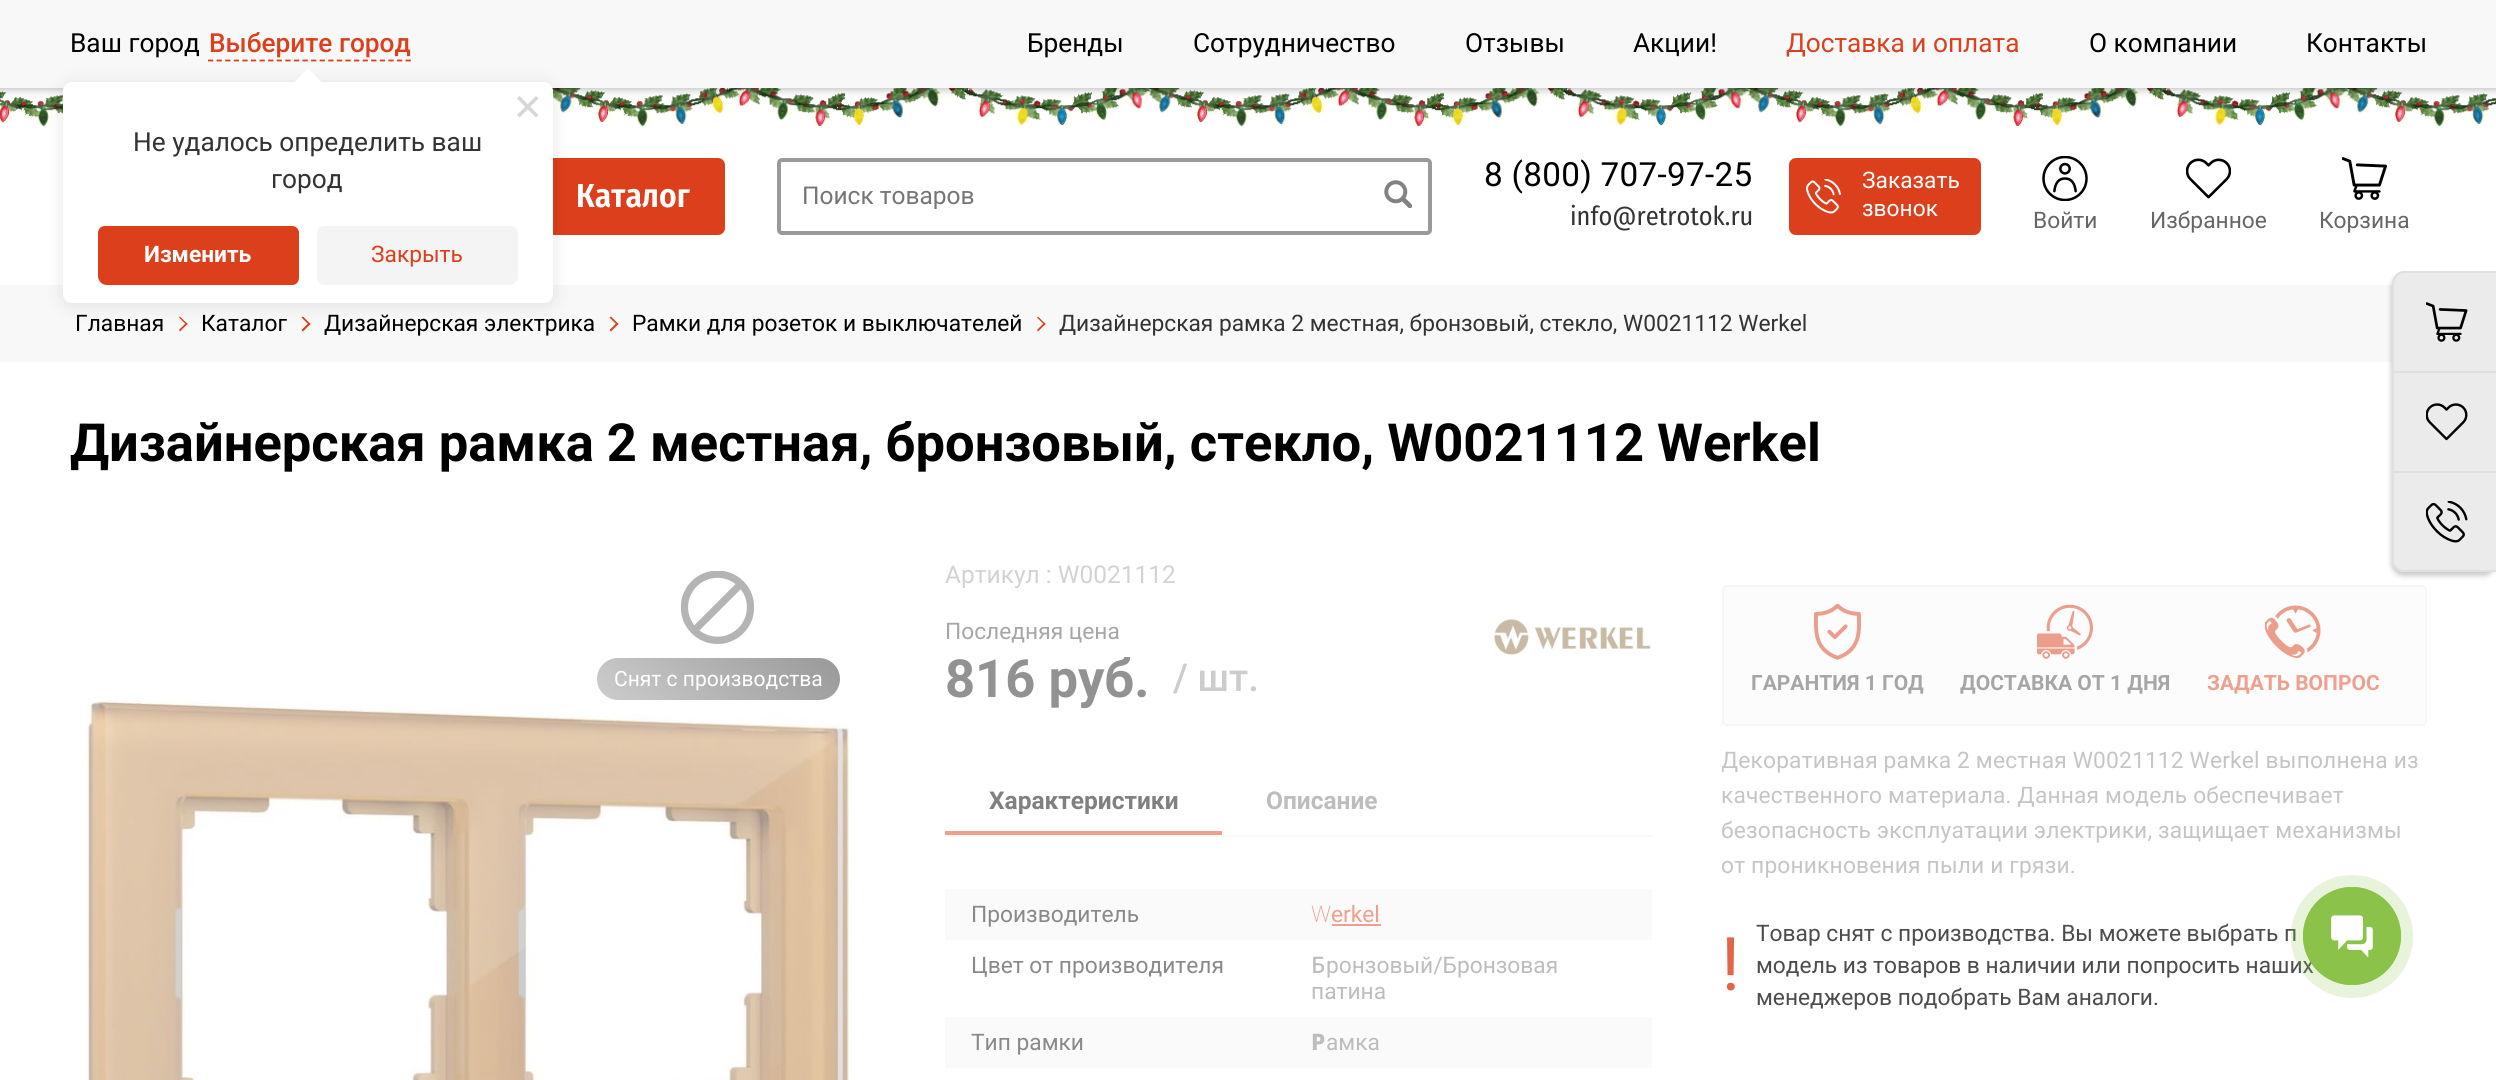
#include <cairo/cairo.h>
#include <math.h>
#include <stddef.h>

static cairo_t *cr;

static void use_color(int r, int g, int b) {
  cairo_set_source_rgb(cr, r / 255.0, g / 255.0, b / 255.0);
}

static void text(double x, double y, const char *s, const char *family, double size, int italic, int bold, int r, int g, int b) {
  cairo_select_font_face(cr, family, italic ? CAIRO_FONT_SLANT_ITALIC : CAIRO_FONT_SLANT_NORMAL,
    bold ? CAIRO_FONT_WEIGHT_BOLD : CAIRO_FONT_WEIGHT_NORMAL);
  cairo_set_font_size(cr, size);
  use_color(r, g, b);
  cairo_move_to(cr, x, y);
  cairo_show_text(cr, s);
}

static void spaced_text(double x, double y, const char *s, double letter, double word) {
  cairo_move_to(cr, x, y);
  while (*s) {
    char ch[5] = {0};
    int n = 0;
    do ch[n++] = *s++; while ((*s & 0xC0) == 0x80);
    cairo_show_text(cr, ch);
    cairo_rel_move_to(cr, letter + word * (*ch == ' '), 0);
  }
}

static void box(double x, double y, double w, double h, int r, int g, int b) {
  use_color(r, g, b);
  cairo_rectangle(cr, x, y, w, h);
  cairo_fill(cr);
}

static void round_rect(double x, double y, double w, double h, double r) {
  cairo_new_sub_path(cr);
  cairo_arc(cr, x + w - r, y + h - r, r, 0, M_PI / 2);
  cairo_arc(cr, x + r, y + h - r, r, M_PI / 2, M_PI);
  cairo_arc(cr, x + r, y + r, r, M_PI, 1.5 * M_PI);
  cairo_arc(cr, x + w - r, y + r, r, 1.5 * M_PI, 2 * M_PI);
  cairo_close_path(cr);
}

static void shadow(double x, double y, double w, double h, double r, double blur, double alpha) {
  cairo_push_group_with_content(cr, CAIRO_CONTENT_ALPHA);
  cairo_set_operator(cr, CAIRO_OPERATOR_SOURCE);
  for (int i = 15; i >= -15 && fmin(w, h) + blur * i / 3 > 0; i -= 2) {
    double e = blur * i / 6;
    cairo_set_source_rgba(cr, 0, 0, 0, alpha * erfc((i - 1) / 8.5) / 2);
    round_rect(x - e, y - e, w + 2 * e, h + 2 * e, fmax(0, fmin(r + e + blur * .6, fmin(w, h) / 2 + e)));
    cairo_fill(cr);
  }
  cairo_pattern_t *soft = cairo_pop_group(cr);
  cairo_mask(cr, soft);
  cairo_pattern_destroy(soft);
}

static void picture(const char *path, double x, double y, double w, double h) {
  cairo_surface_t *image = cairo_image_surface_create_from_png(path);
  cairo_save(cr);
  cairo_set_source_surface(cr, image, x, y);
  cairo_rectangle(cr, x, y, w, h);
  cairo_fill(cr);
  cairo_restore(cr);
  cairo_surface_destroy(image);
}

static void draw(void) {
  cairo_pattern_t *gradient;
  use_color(255, 255, 255);
  cairo_paint(cr);
  picture("img_01.png", 0, 88, 2496, 41);
  use_color(0, 0, 0);
  shadow(-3, -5, 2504, 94, 0, 4.5, 0.3);
  box(0, 0, 2496, 88, 249, 248, 248);
  cairo_new_path(cr);
  cairo_move_to(cr, 208, 60.5);
  cairo_line_to(cr, 411, 60.5);
  use_color(220, 63, 28);
  cairo_set_line_width(cr, 1.8);
  cairo_set_dash(cr, (double[]){5.25, 3.34}, 2, 0);
  cairo_stroke(cr);
  round_rect(480, 158, 245, 77, 7);
  cairo_fill(cr);
  round_rect(779, 160, 651, 73, 3);
  use_color(154, 154, 154);
  cairo_set_line_width(cr, 4);
  cairo_set_dash(cr, NULL, 0, 0);
  cairo_stroke(cr);
  picture("img_02.png", 1384, 180, 28, 28);
  use_color(220, 63, 28);
  round_rect(1789, 158, 192, 77, 7);
  cairo_fill(cr);
  picture("img_03.png", 1806, 179, 35, 35);
  picture("img_04.png", 2042, 156, 46, 45);
  picture("img_05.png", 2186, 158, 45, 41);
  picture("img_06.png", 2342, 157, 45, 43);
  box(0, 285, 2392, 77, 249, 248, 248);
  use_color(0, 0, 0);
  shadow(2391, 275, 105, 301, 12, 2.5, 0.2);
  use_color(235, 235, 235);
  cairo_new_path(cr);
  cairo_move_to(cr, 2404, 271);
  cairo_line_to(cr, 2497, 271);
  cairo_line_to(cr, 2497, 572);
  cairo_line_to(cr, 2404, 572);
  cairo_curve_to(cr, 2397.5, 572, 2392, 566.5, 2392, 560);
  cairo_line_to(cr, 2392, 283);
  cairo_curve_to(cr, 2392, 276.5, 2397.5, 271, 2404, 271);
  cairo_close_path(cr);
  cairo_fill(cr);
  use_color(224, 224, 224);
  cairo_set_fill_rule(cr, CAIRO_FILL_RULE_EVEN_ODD);
  cairo_new_path(cr);
  cairo_move_to(cr, 2404, 271);
  cairo_line_to(cr, 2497, 271);
  cairo_line_to(cr, 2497, 373);
  cairo_line_to(cr, 2392, 373);
  cairo_line_to(cr, 2392, 284);
  cairo_curve_to(cr, 2392, 277, 2398, 271, 2404, 271);
  cairo_close_path(cr);
  cairo_move_to(cr, 2404, 273);
  cairo_line_to(cr, 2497, 273);
  cairo_line_to(cr, 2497, 371);
  cairo_line_to(cr, 2394, 371);
  cairo_line_to(cr, 2394, 284);
  cairo_curve_to(cr, 2394, 278, 2399, 273, 2404, 273);
  cairo_close_path(cr);
  cairo_fill(cr);
  picture("img_07.png", 2426, 302, 42, 40);
  box(2392, 471, 104, 2, 224, 224, 224);
  box(2392, 373, 2, 100, 224, 224, 224);
  picture("img_08.png", 2426, 403, 42, 38);
  cairo_new_path(cr);
  cairo_move_to(cr, 2392, 472);
  cairo_line_to(cr, 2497, 472);
  cairo_line_to(cr, 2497, 572);
  cairo_line_to(cr, 2404, 572);
  cairo_curve_to(cr, 2398, 572, 2392, 567, 2392, 560);
  cairo_close_path(cr);
  cairo_move_to(cr, 2394, 472);
  cairo_line_to(cr, 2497, 472);
  cairo_line_to(cr, 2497, 570);
  cairo_line_to(cr, 2404, 570);
  cairo_curve_to(cr, 2399, 570, 2394, 566, 2394, 560);
  cairo_close_path(cr);
  cairo_fill(cr);
  picture("img_09.png", 2426, 501, 42, 42);
  use_color(220, 63, 28);
  cairo_set_fill_rule(cr, CAIRO_FILL_RULE_WINDING);
  cairo_new_path(cr);
  cairo_move_to(cr, 180, 316.5);
  cairo_line_to(cr, 187.5, 324);
  cairo_line_to(cr, 186.5, 325);
  cairo_line_to(cr, 179, 317.5);
  cairo_close_path(cr);
  cairo_fill(cr);
  cairo_new_path(cr);
  cairo_move_to(cr, 186.5, 322.5);
  cairo_line_to(cr, 187.5, 324);
  cairo_line_to(cr, 180, 331.5);
  cairo_line_to(cr, 179, 330);
  cairo_close_path(cr);
  cairo_fill(cr);
  cairo_new_path(cr);
  cairo_move_to(cr, 303, 316.5);
  cairo_line_to(cr, 310.5, 324);
  cairo_line_to(cr, 309, 325);
  cairo_line_to(cr, 301.5, 317.5);
  cairo_close_path(cr);
  cairo_fill(cr);
  cairo_new_path(cr);
  cairo_move_to(cr, 309, 322.5);
  cairo_line_to(cr, 310.5, 324);
  cairo_line_to(cr, 303, 331.5);
  cairo_line_to(cr, 301.5, 330);
  cairo_close_path(cr);
  cairo_fill(cr);
  cairo_new_path(cr);
  cairo_move_to(cr, 611, 316.5);
  cairo_line_to(cr, 618.5, 324);
  cairo_line_to(cr, 617, 325);
  cairo_line_to(cr, 609.5, 317.5);
  cairo_close_path(cr);
  cairo_fill(cr);
  cairo_new_path(cr);
  cairo_move_to(cr, 617, 322.5);
  cairo_line_to(cr, 618.5, 324);
  cairo_line_to(cr, 611, 331.5);
  cairo_line_to(cr, 609.5, 330);
  cairo_close_path(cr);
  cairo_fill(cr);
  cairo_new_path(cr);
  cairo_move_to(cr, 1038, 316.5);
  cairo_line_to(cr, 1045.5, 324);
  cairo_line_to(cr, 1044.5, 325);
  cairo_line_to(cr, 1037, 317.5);
  cairo_close_path(cr);
  cairo_fill(cr);
  cairo_new_path(cr);
  cairo_move_to(cr, 1044.5, 322.5);
  cairo_line_to(cr, 1045.5, 324);
  cairo_line_to(cr, 1038, 331.5);
  cairo_line_to(cr, 1037, 330);
  cairo_close_path(cr);
  cairo_fill(cr);
  gradient = cairo_pattern_create_linear(647, 750, 790, 608);
  cairo_pattern_add_color_stop_rgba(gradient, 0, 0.8, 0.8, 0.8, 1);
  cairo_pattern_add_color_stop_rgba(gradient, 1, 0.6, 0.6, 0.6, 1);
  cairo_set_source(cr, gradient);
  cairo_pattern_destroy(gradient);
  round_rect(597, 658, 243, 42, 21);
  cairo_fill(cr);
  picture("img_10.png", 681, 571, 73, 73);
  picture("img_11.png", 86, 700, 766, 380);
  picture("img_12.png", 1494, 619, 157, 36);
  box(945, 831, 277, 4, 238, 159, 142);
  box(945, 835, 707, 2, 248, 248, 248);
  box(945, 889, 707, 51, 250, 250, 250);
  box(1332, 924, 49, 2, 238, 159, 142);
  box(945, 1017, 707, 51, 250, 250, 250);
  use_color(252, 252, 252);
  round_rect(1723, 586, 703, 139, 4);
  cairo_fill_preserve(cr);
  use_color(246, 246, 246);
  cairo_set_line_width(cr, 2);
  cairo_stroke(cr);
  picture("img_13.png", 1814, 604, 47, 56);
  picture("img_14.png", 2037, 604, 56, 55);
  picture("img_15.png", 2265, 605, 56, 53);
  use_color(0, 0, 0);
  shadow(63, 84, 490, 221, 9, 9, 0.1);
  use_color(255, 255, 255);
  round_rect(63, 82, 490, 221, 9);
  cairo_fill(cr);
  cairo_new_path(cr);
  cairo_move_to(cr, 308, 68.5);
  cairo_line_to(cr, 321.5, 82);
  cairo_line_to(cr, 308, 96);
  cairo_line_to(cr, 294.5, 82);
  cairo_close_path(cr);
  cairo_fill(cr);
  use_color(214, 214, 214);
  cairo_new_path(cr);
  cairo_move_to(cr, 536, 96);
  cairo_line_to(cr, 538.5, 98.5);
  cairo_line_to(cr, 519.5, 117.5);
  cairo_line_to(cr, 517, 115);
  cairo_close_path(cr);
  cairo_fill(cr);
  cairo_new_path(cr);
  cairo_move_to(cr, 517, 98.5);
  cairo_line_to(cr, 519.5, 96);
  cairo_line_to(cr, 538.5, 115);
  cairo_line_to(cr, 536, 117.5);
  cairo_close_path(cr);
  cairo_fill(cr);
  use_color(220, 63, 28);
  cairo_new_path(cr);
  cairo_move_to(cr, 105, 226);
  cairo_line_to(cr, 292, 226);
  cairo_curve_to(cr, 296, 226, 299, 229, 299, 233);
  cairo_line_to(cr, 299, 278);
  cairo_curve_to(cr, 299, 282, 296, 285, 292, 285);
  cairo_line_to(cr, 107, 285);
  cairo_curve_to(cr, 102, 285, 98, 281, 98, 276);
  cairo_line_to(cr, 98, 233);
  cairo_curve_to(cr, 98, 229, 101, 226, 105, 226);
  cairo_close_path(cr);
  cairo_fill(cr);
  use_color(245, 244, 244);
  cairo_new_path(cr);
  cairo_move_to(cr, 324, 226);
  cairo_line_to(cr, 511, 226);
  cairo_curve_to(cr, 515, 226, 518, 229, 518, 233);
  cairo_line_to(cr, 518, 276);
  cairo_curve_to(cr, 518, 281, 514, 285, 509, 285);
  cairo_line_to(cr, 324, 285);
  cairo_curve_to(cr, 320, 285, 317, 282, 317, 278);
  cairo_line_to(cr, 317, 233);
  cairo_curve_to(cr, 317, 229, 320, 226, 324, 226);
  cairo_close_path(cr);
  cairo_fill(cr);
  text(70, 52, "Ваш город", "Roboto", 26.25, 0, 0, 0, 0, 0);
  text(209, 52, "Выберите город", "Roboto Medium", 26.25, 0, 0, 220, 63, 28);
  text(1027, 52, "Бренды", "Roboto", 26.25, 0, 0, 0, 0, 0);
  text(1193, 52, "Сотрудничество", "Roboto", 26.25, 0, 0, 0, 0, 0);
  text(1465, 52, "Отзывы", "Roboto", 26.25, 0, 0, 0, 0, 0);
  text(1633, 52, "Акции!", "Roboto", 26.25, 0, 0, 0, 0, 0);
  text(1786, 52, "Доставка и оплата", "Roboto", 26.25, 0, 0, 220, 63, 28);
  text(2089, 52, "О компании", "Roboto", 26.25, 0, 0, 0, 0, 0);
  text(2306, 52, "Контакты", "Roboto", 26.25, 0, 0, 0, 0, 0);
  text(576, 207, "Каталог", "Fira Sans Condensed SemiBold", 33.25, 0, 0, 255, 255, 255);
  text(802, 204, "Поиск товаров", "Roboto", 24.5, 0, 0, 117, 117, 117);
  cairo_set_font_size(cr, 33.25);
  use_color(0, 0, 0);
  spaced_text(1484, 186, "8 (800) 707-97-25", 0.3, 0);
  text(1862, 188, "Заказать", "Roboto", 22.75, 0, 0, 255, 255, 255);
  text(1862, 216, "звонок", "Roboto", 22.75, 0, 0, 255, 255, 255);
  text(1570, 225, "info@retrotok.ru", "Fira Sans Condensed", 26.25, 0, 0, 51, 51, 51);
  text(2033, 228, "Войти", "Roboto", 22.75, 0, 0, 102, 102, 102);
  text(2150, 228, "Избранное", "Roboto", 22.75, 0, 0, 102, 102, 102);
  text(2319, 228, "Корзина", "Roboto", 22.75, 0, 0, 102, 102, 102);
  text(75, 331, "Главная", "Roboto", 22.75, 0, 0, 0, 0, 0);
  text(201, 331, "Каталог", "Roboto", 22.75, 0, 0, 0, 0, 0);
  text(324, 331, "Дизайнерская электрика", "Roboto", 22.75, 0, 0, 0, 0, 0);
  text(632, 331, "Рамки для розеток и выключателей", "Roboto", 22.75, 0, 0, 0, 0, 0);
  text(1059, 331, "Дизайнерская рамка 2 местная, бронзовый, стекло, W0021112 Werkel", "Roboto", 22.75, 0, 0, 51, 51, 51);
  text(70, 461, "Дизайнерская рамка 2 местная, бронзовый, стекло, W0021112 Werkel", "Roboto", 52.5, 0, 1, 0, 0, 0);
  text(614, 686, "Снят с производства", "Roboto", 21, 0, 0, 255, 255, 255);
  text(945, 583, "Артикул : W0021112", "Roboto", 24.5, 0, 0, 211, 211, 211);
  text(945, 639, "Последняя цена", "Roboto", 22.75, 0, 0, 166, 166, 166);
  text(945, 697, "816 руб.", "Roboto", 52.5, 0, 1, 146, 146, 146);
  text(1173, 691, "/ шт.", "Roboto Medium", 38.5, 0, 0, 204, 204, 204);
  text(989, 809, "Характеристики", "Roboto", 24.5, 0, 1, 128, 128, 128);
  text(1266, 809, "Описание", "Roboto", 24.5, 0, 1, 189, 189, 189);
  text(971, 922, "Производитель", "Roboto", 22.75, 0, 0, 137, 137, 137);
  text(1311, 922, "W", "Noto Sans ExtraLight", 22.75, 0, 0, 238, 159, 142);
  text(1331, 922, "erkel", "Roboto", 22.75, 0, 0, 238, 159, 142);
  text(971, 973, "Цвет от производителя", "Roboto", 22.75, 0, 0, 137, 137, 137);
  text(1311, 973, "Б", "Noto Sans Medium", 22.75, 0, 0, 189, 189, 189);
  text(1326, 973, "ронзовый/Бронзовая", "Roboto", 22.75, 0, 0, 189, 189, 189);
  text(1311, 999, "патина", "Roboto", 22.75, 0, 0, 189, 189, 189);
  text(971, 1050, "Тип рамки", "Roboto", 22.75, 0, 0, 137, 137, 137);
  text(1311, 1050, "Р", "Noto Sans ExtraBold", 22.75, 0, 0, 189, 189, 189);
  text(1326, 1050, "амка", "Roboto", 22.75, 0, 0, 189, 189, 189);
  text(1751, 690, "ГАРАНТИЯ 1 ГОД", "Roboto", 21, 0, 1, 166, 166, 166);
  text(1960, 690, "ДОСТАВКА ОТ 1 ДНЯ", "Roboto", 21, 0, 1, 166, 166, 166);
  text(2207, 690, "ЗАДАТЬ ВОПРОС", "Roboto", 21, 0, 1, 238, 159, 142);
  cairo_save(cr);
  cairo_rectangle(cr, 1722, 744, 705, 140);
  cairo_clip(cr);
  cairo_select_font_face(cr, "Roboto", CAIRO_FONT_SLANT_NORMAL, CAIRO_FONT_WEIGHT_NORMAL);
  cairo_set_font_size(cr, 22.75);
  use_color(197, 197, 197);
  spaced_text(1721, 768, "Декоративная рамка 2 местная W0021112 Werkel выполнена из", 0.18, 0);
  cairo_restore(cr);
  cairo_select_font_face(cr, "Roboto", CAIRO_FONT_SLANT_NORMAL, CAIRO_FONT_WEIGHT_NORMAL);
  cairo_set_font_size(cr, 22.75);
  use_color(197, 197, 197);
  spaced_text(1721, 803, "качественного материала. Данная модель обеспечивает", 0.18, 0);
  spaced_text(1721, 838, "безопасность эксплуатации электрики, защищает механизмы", 0.18, 0);
  spaced_text(1721, 873, "от проникновения пыли и грязи.", 0.18, 0);
  text(1756, 941, "Товар снят с производства. Вы можете выбрать п", "Roboto", 22.75, 0, 0, 76, 76, 76);
  text(1721, 990, "!", "Roboto", 74, 0, 0, 227, 101, 73);
  text(1756, 973, "модель из товаров в наличии или попросить наших", "Roboto", 22.75, 0, 0, 76, 76, 76);
  text(1756, 1005, "менеджеров подобрать Вам аналоги.", "Roboto", 22.75, 0, 0, 76, 76, 76);
  text(133, 151, "Не удалось определить ваш", "Roboto", 26.25, 0, 0, 51, 51, 51);
  text(271, 188, "город", "Roboto", 26.25, 0, 0, 51, 51, 51);
  text(144, 262, "Изменить", "Roboto", 22.75, 0, 1, 255, 255, 255);
  text(371, 262, "Закрыть", "Roboto", 22.75, 0, 0, 220, 63, 28);
  cairo_set_source_rgba(cr, 0.545, 0.765, 0.29, 0.2);
  round_rect(2291, 875, 122, 123, 61);
  cairo_fill(cr);
  cairo_arc(cr, 2352, 936, 48.5, 0, 2 * M_PI);
  use_color(139, 195, 74);
  cairo_set_line_width(cr, 1);
  cairo_stroke(cr);
  cairo_arc(cr, 2352, 936, 49, 0, 2 * M_PI);
  cairo_fill(cr);
  picture("img_16.png", 2331, 915, 42, 42);
}

int main(void) {
  cairo_surface_t *surface = cairo_image_surface_create(CAIRO_FORMAT_RGB24, 2496, 1080);
  cr = cairo_create(surface);
  cairo_font_options_t *options = cairo_font_options_create();
  cairo_font_options_set_hint_metrics(options, CAIRO_HINT_METRICS_OFF);
  cairo_font_options_set_hint_style(options, CAIRO_HINT_STYLE_NONE);
  cairo_set_font_options(cr, options);
  cairo_set_miter_limit(cr, 4);
  draw();
  cairo_surface_write_to_png(surface, "out.png");
  cairo_font_options_destroy(options);
  cairo_destroy(cr);
  cairo_surface_destroy(surface);
  return 0;
}
